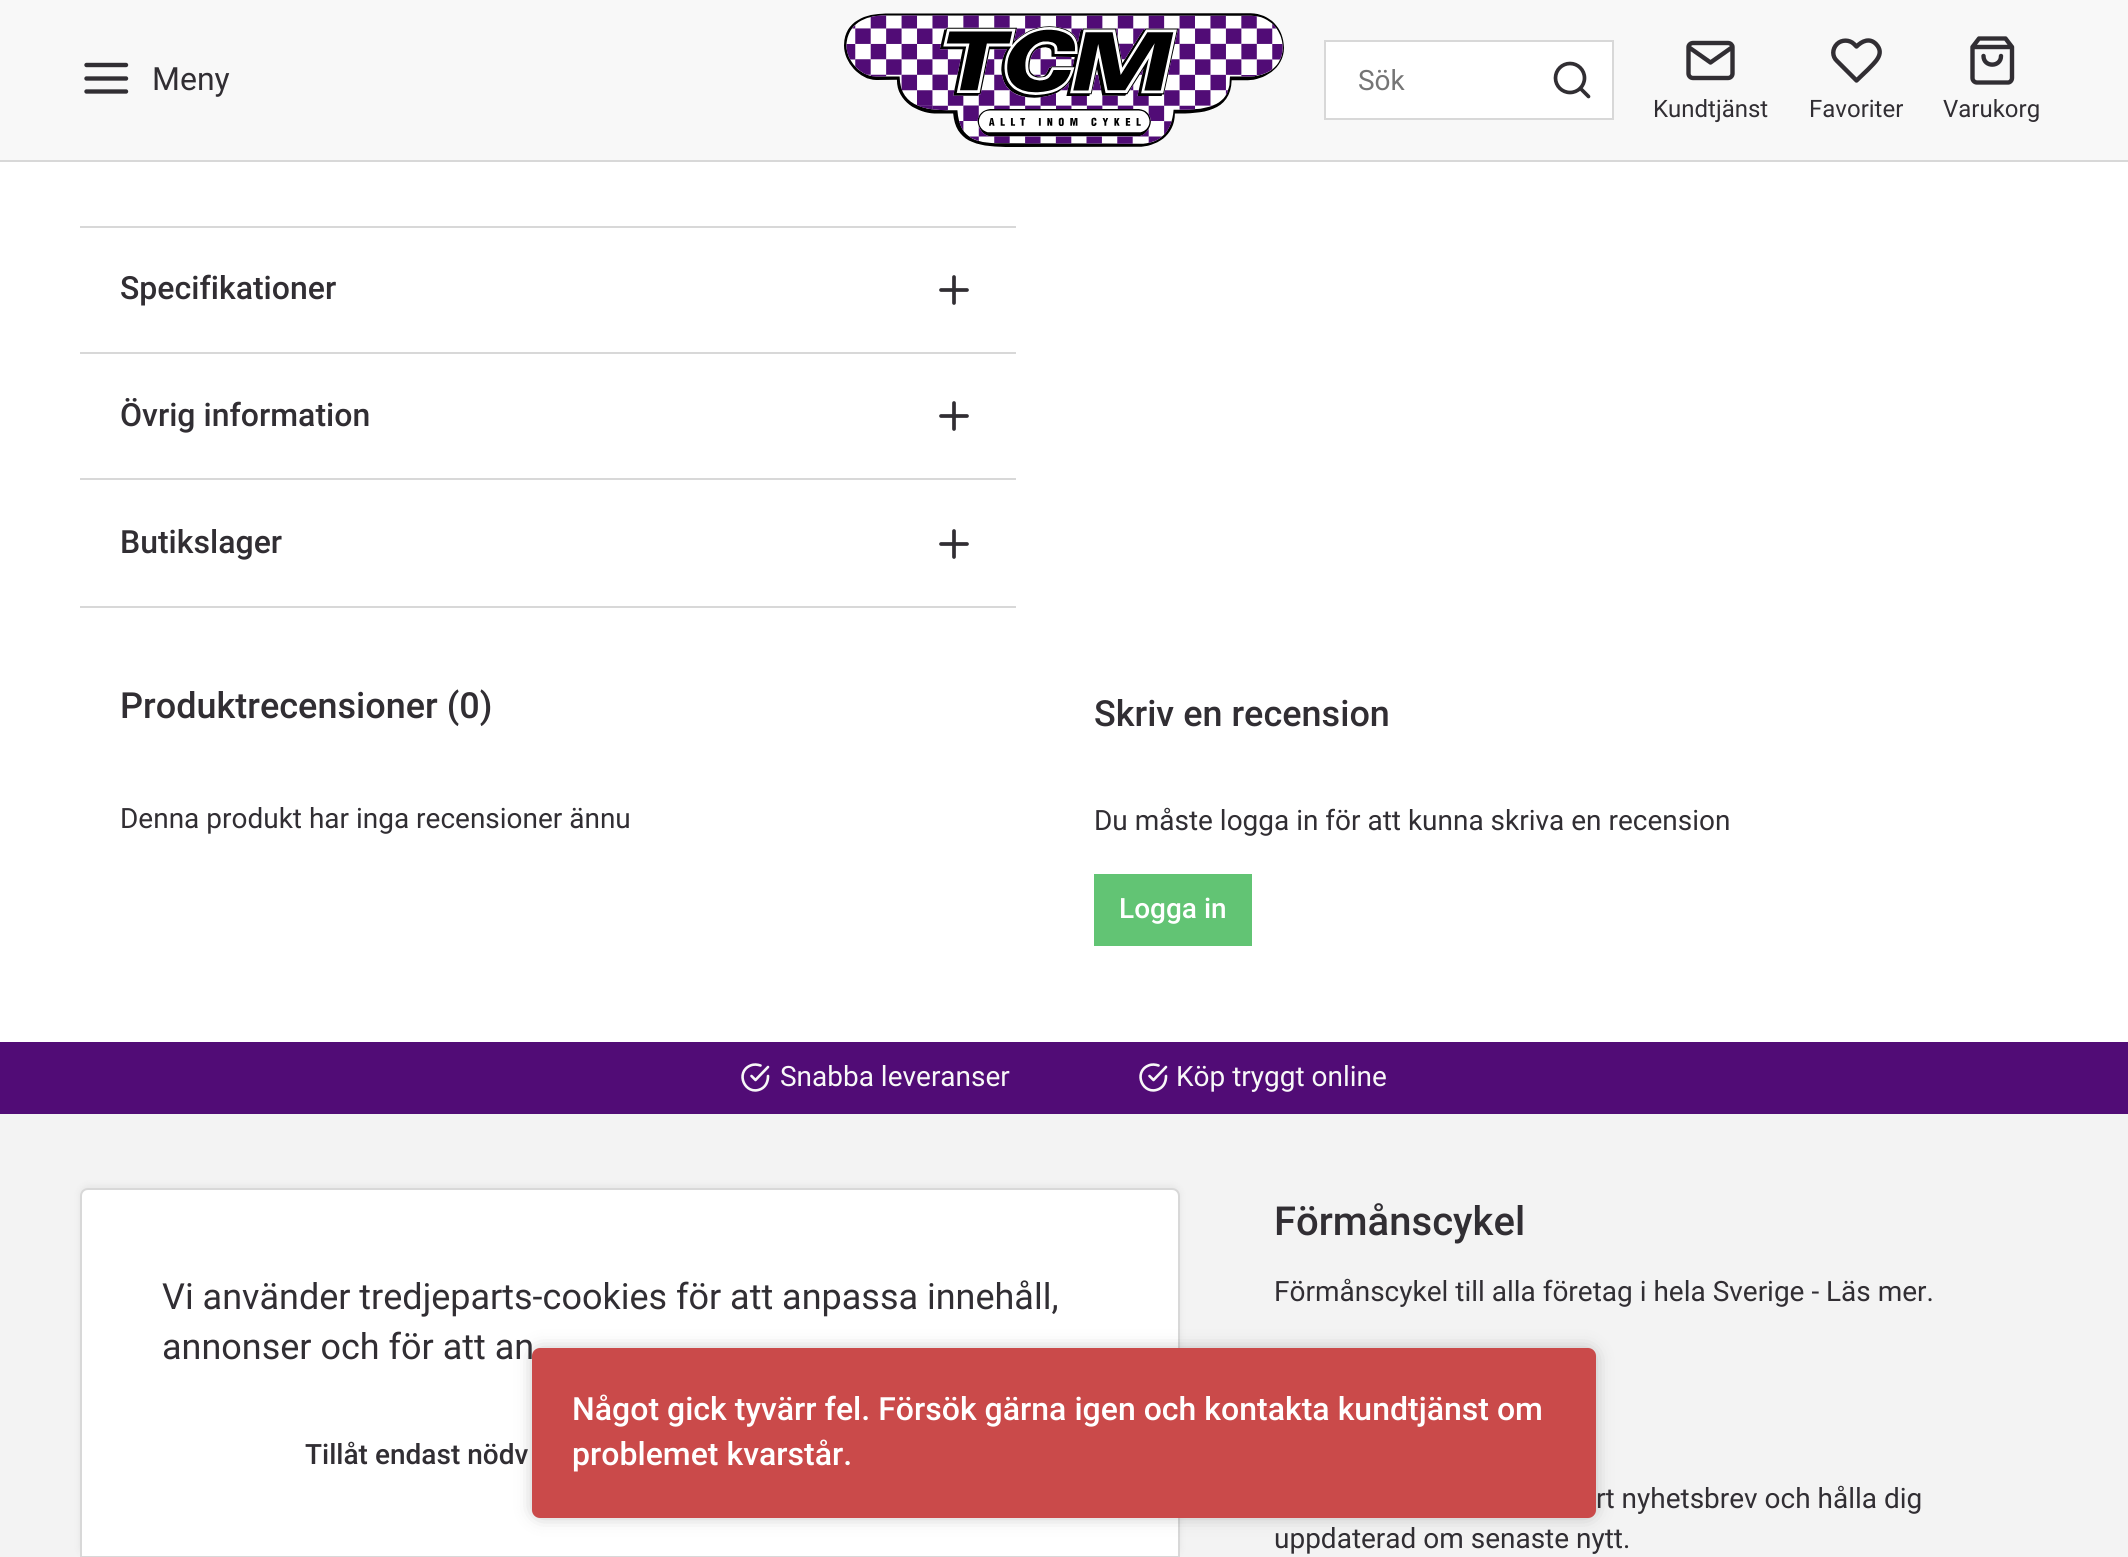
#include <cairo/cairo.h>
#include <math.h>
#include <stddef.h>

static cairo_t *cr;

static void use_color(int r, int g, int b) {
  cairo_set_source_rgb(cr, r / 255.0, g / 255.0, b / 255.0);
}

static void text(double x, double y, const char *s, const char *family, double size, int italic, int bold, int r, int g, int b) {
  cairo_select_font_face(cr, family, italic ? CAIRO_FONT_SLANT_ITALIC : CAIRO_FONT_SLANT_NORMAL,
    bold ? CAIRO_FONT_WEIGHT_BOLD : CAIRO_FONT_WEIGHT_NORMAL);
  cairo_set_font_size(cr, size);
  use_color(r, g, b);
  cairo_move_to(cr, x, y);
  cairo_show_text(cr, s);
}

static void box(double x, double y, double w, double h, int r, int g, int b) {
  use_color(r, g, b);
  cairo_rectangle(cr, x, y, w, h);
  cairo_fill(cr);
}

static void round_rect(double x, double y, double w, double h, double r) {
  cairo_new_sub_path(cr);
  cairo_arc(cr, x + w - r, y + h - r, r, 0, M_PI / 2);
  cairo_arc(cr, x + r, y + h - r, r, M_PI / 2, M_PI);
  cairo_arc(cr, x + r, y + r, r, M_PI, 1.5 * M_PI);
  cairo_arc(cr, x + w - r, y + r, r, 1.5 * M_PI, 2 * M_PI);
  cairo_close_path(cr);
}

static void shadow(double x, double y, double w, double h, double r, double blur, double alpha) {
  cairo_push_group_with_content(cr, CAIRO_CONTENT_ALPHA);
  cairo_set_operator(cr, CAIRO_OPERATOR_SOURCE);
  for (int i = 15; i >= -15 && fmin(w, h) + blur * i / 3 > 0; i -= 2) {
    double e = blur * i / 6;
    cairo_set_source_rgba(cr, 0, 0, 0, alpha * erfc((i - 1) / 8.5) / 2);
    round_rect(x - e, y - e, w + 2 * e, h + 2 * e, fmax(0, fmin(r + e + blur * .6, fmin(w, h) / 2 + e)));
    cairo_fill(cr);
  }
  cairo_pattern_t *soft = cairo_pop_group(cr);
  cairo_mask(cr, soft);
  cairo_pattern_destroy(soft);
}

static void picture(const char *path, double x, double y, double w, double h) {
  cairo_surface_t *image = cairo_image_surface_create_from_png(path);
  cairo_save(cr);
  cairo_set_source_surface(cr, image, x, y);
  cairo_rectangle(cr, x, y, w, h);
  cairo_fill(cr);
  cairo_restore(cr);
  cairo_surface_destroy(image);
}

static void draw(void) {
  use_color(255, 255, 255);
  cairo_paint(cr);
  box(0, 160, 2128, 2, 216, 216, 216);
  box(0, 0, 2128, 160, 248, 248, 248);
  cairo_new_path(cr);
  cairo_move_to(cr, 86.5, 78.5);
  cairo_line_to(cr, 126, 78.5);
  cairo_move_to(cr, 86.5, 65);
  cairo_line_to(cr, 126, 65);
  cairo_move_to(cr, 86.5, 91.5);
  cairo_line_to(cr, 126, 91.5);
  use_color(49, 46, 51);
  cairo_set_line_width(cr, 4.4);
  cairo_set_line_cap(cr, CAIRO_LINE_CAP_ROUND);
  cairo_set_line_join(cr, CAIRO_LINE_JOIN_ROUND);
  cairo_stroke(cr);
  picture("img_01.png", 844, 13, 440, 134);
  use_color(255, 255, 255);
  cairo_rectangle(cr, 1325, 41, 288, 78);
  cairo_fill_preserve(cr);
  use_color(216, 216, 216);
  cairo_set_line_width(cr, 2);
  cairo_set_line_cap(cr, CAIRO_LINE_CAP_BUTT);
  cairo_set_line_join(cr, CAIRO_LINE_JOIN_MITER);
  cairo_stroke(cr);
  cairo_arc(cr, 1570, 78, 14.5, 0, 2 * M_PI);
  use_color(49, 46, 51);
  cairo_set_line_width(cr, 3.7);
  cairo_stroke(cr);
  cairo_new_path(cr);
  cairo_move_to(cr, 1588.5, 96.5);
  cairo_line_to(cr, 1580.5, 88.5);
  cairo_set_line_cap(cr, CAIRO_LINE_CAP_ROUND);
  cairo_set_line_join(cr, CAIRO_LINE_JOIN_ROUND);
  cairo_stroke(cr);
  cairo_new_path(cr);
  cairo_move_to(cr, 1693, 43);
  cairo_line_to(cr, 1728, 43);
  cairo_curve_to(cr, 1730.5, 43, 1732.5, 45, 1732.5, 47);
  cairo_line_to(cr, 1732.5, 73.5);
  cairo_curve_to(cr, 1732.5, 76, 1730.5, 78, 1728, 78);
  cairo_line_to(cr, 1693, 78);
  cairo_curve_to(cr, 1690.5, 78, 1688.5, 76, 1688.5, 73.5);
  cairo_line_to(cr, 1688.5, 47);
  cairo_curve_to(cr, 1688.5, 45, 1690.5, 43, 1693, 43);
  cairo_close_path(cr);
  cairo_move_to(cr, 1732.5, 47);
  cairo_line_to(cr, 1710.5, 62.5);
  cairo_line_to(cr, 1688.5, 47);
  cairo_set_line_width(cr, 4.4);
  cairo_stroke(cr);
  cairo_new_path(cr);
  cairo_move_to(cr, 1876, 44);
  cairo_curve_to(cr, 1869.5, 37.5, 1862, 41, 1856.5, 46.5);
  cairo_line_to(cr, 1854, 44);
  cairo_curve_to(cr, 1849.5, 39.5, 1841.5, 39.5, 1837, 44);
  cairo_curve_to(cr, 1832, 49, 1832, 56.5, 1837, 61);
  cairo_line_to(cr, 1856.5, 80.5);
  cairo_line_to(cr, 1868, 69.5);
  cairo_curve_to(cr, 1874.5, 62.5, 1885.5, 54, 1876, 44);
  cairo_close_path(cr);
  cairo_stroke(cr);
  cairo_new_path(cr);
  cairo_move_to(cr, 1979, 38.5);
  cairo_line_to(cr, 1972.5, 47);
  cairo_line_to(cr, 1972.5, 78);
  cairo_curve_to(cr, 1972.5, 80.5, 1974.5, 82.5, 1977, 82.5);
  cairo_line_to(cr, 2008, 82.5);
  cairo_curve_to(cr, 2010, 82.5, 2012, 80.5, 2012, 78);
  cairo_line_to(cr, 2012, 47);
  cairo_line_to(cr, 2005.5, 38.5);
  cairo_close_path(cr);
  cairo_move_to(cr, 1972.5, 47);
  cairo_line_to(cr, 2012, 47);
  cairo_move_to(cr, 2001, 56);
  cairo_curve_to(cr, 2001, 67.5, 1983.5, 67.5, 1983.5, 56);
  cairo_stroke(cr);
  box(80, 226, 936, 2, 216, 216, 216);
  box(80, 352, 936, 2, 216, 216, 216);
  cairo_new_path(cr);
  cairo_move_to(cr, 954, 277);
  cairo_line_to(cr, 954, 303);
  cairo_move_to(cr, 941, 290);
  cairo_line_to(cr, 967, 290);
  use_color(49, 46, 51);
  cairo_set_line_width(cr, 3.7);
  cairo_stroke(cr);
  box(80, 478, 936, 2, 216, 216, 216);
  cairo_new_path(cr);
  cairo_move_to(cr, 954, 403);
  cairo_line_to(cr, 954, 429);
  cairo_move_to(cr, 941, 416);
  cairo_line_to(cr, 967, 416);
  use_color(49, 46, 51);
  cairo_stroke(cr);
  box(80, 606, 936, 2, 216, 216, 216);
  cairo_new_path(cr);
  cairo_move_to(cr, 954, 531);
  cairo_line_to(cr, 954, 557);
  cairo_move_to(cr, 941, 544);
  cairo_line_to(cr, 967, 544);
  use_color(49, 46, 51);
  cairo_stroke(cr);
  box(1094, 874, 158, 72, 98, 196, 116);
  box(0, 1114, 2128, 443, 243, 243, 243);
  use_color(0, 0, 0);
  shadow(80, 1186, 1100, 370, 8, 4, 0.06);
  use_color(255, 255, 255);
  cairo_new_path(cr);
  cairo_move_to(cr, 88, 1189);
  cairo_line_to(cr, 1172, 1189);
  cairo_curve_to(cr, 1176, 1189, 1179, 1192, 1179, 1196);
  cairo_line_to(cr, 1179, 1557);
  cairo_line_to(cr, 81, 1557);
  cairo_line_to(cr, 81, 1196);
  cairo_curve_to(cr, 81, 1192, 84, 1189, 88, 1189);
  cairo_close_path(cr);
  cairo_fill_preserve(cr);
  use_color(216, 216, 216);
  cairo_set_line_width(cr, 2);
  cairo_set_line_cap(cr, CAIRO_LINE_CAP_BUTT);
  cairo_set_line_join(cr, CAIRO_LINE_JOIN_MITER);
  cairo_stroke(cr);
  box(0, 1042, 2128, 72, 81, 12, 118);
  cairo_new_path(cr);
  cairo_move_to(cr, 768, 1076);
  cairo_curve_to(cr, 768, 1081.5, 766, 1086.5, 761, 1089);
  cairo_curve_to(cr, 745, 1096.5, 734.5, 1072, 750.5, 1065.5);
  cairo_curve_to(cr, 754, 1064, 757.5, 1064.5, 760.5, 1065.5);
  cairo_move_to(cr, 768, 1067);
  cairo_line_to(cr, 755.5, 1080);
  cairo_line_to(cr, 751.5, 1076);
  use_color(248, 248, 248);
  cairo_set_line_width(cr, 2.6);
  cairo_set_line_cap(cr, CAIRO_LINE_CAP_ROUND);
  cairo_set_line_join(cr, CAIRO_LINE_JOIN_ROUND);
  cairo_stroke(cr);
  cairo_new_path(cr);
  cairo_move_to(cr, 1166, 1076);
  cairo_curve_to(cr, 1166, 1081.5, 1164, 1086.5, 1159, 1089);
  cairo_curve_to(cr, 1143, 1096.5, 1132.5, 1072, 1148.5, 1065.5);
  cairo_curve_to(cr, 1152, 1064, 1155.5, 1064.5, 1158.5, 1065.5);
  cairo_move_to(cr, 1166, 1067);
  cairo_line_to(cr, 1153.5, 1080);
  cairo_line_to(cr, 1149.5, 1076);
  cairo_stroke(cr);
  use_color(0, 0, 0);
  shadow(538, 1354, 1052, 158, 2, 10, 0.4);
  use_color(202, 74, 74);
  round_rect(532, 1348, 1064, 170, 8);
  cairo_fill(cr);
  text(152, 90, "Meny", "Roboto", 32, 0, 0, 49, 46, 51);
  text(1358, 90, "Sök", "Roboto", 28, 0, 0, 117, 117, 117);
  text(1653, 117, "Kundtjänst", "Roboto", 24, 0, 0, 49, 46, 51);
  text(1809, 117, "Favoriter", "Roboto", 24, 0, 0, 49, 46, 51);
  text(1943, 117, "Varukorg", "Roboto", 24, 0, 0, 49, 46, 51);
  text(120, 299, "Specifikationer", "Roboto Medium", 32, 0, 0, 49, 46, 51);
  text(120, 426, "Övrig information", "Roboto Medium", 32, 0, 0, 49, 46, 51);
  text(120, 553, "Butikslager", "Roboto Medium", 32, 0, 0, 49, 46, 51);
  text(120, 718, "Produktrecensioner (0)", "Roboto Medium", 36, 0, 0, 49, 46, 51);
  text(120, 828, "Denna produkt har inga recensioner ännu", "Roboto", 28, 0, 0, 49, 46, 51);
  text(1094, 726, "Skriv en recension", "Roboto Medium", 36, 0, 0, 49, 46, 51);
  text(1094, 830, "Du måste logga in för att kunna skriva en recension", "Roboto", 28, 0, 0, 49, 46, 51);
  text(1119, 918, "Logga in", "Roboto Medium", 28, 0, 0, 255, 255, 255);
  text(162, 1309, "Vi använder tredjeparts-cookies för att anpassa innehåll,", "Roboto", 36, 0, 0, 49, 46, 51);
  text(162, 1359, "annonser och för att an", "Roboto", 36, 0, 0, 49, 46, 51);
  text(305, 1464, "Tillåt endast nödv", "Roboto Medium", 28, 0, 0, 49, 46, 51);
  text(780, 1086, "Snabba leveranser", "Roboto", 28, 0, 0, 248, 248, 248);
  text(1176, 1086, "Köp tryggt online", "Roboto", 28, 0, 0, 248, 248, 248);
  text(1274, 1235, "Förmånscykel", "Roboto Medium", 40, 0, 0, 49, 46, 51);
  text(1274, 1301, "Förmånscykel till alla företag i hela Sverige - Läs mer.", "Roboto", 28, 0, 0, 49, 46, 51);
  text(1596, 1508, "rt nyhetsbrev och hålla dig", "Roboto", 28, 0, 0, 49, 46, 51);
  text(1274, 1548, "uppdaterad om senaste nytt.", "Roboto", 28, 0, 0, 49, 46, 51);
  text(572, 1420, "Något gick tyvärr fel. Försök gärna igen och kontakta kundtjänst om", "Roboto Medium", 32, 0, 0, 255, 255, 255);
  text(572, 1465, "problemet kvarstår.", "Roboto Medium", 32, 0, 0, 255, 255, 255);
}

int main(void) {
  cairo_surface_t *surface = cairo_image_surface_create(CAIRO_FORMAT_RGB24, 2128, 1557);
  cr = cairo_create(surface);
  cairo_font_options_t *options = cairo_font_options_create();
  cairo_font_options_set_hint_metrics(options, CAIRO_HINT_METRICS_OFF);
  cairo_font_options_set_hint_style(options, CAIRO_HINT_STYLE_NONE);
  cairo_set_font_options(cr, options);
  cairo_set_miter_limit(cr, 4);
  draw();
  cairo_surface_write_to_png(surface, "out.png");
  cairo_font_options_destroy(options);
  cairo_destroy(cr);
  cairo_surface_destroy(surface);
  return 0;
}
